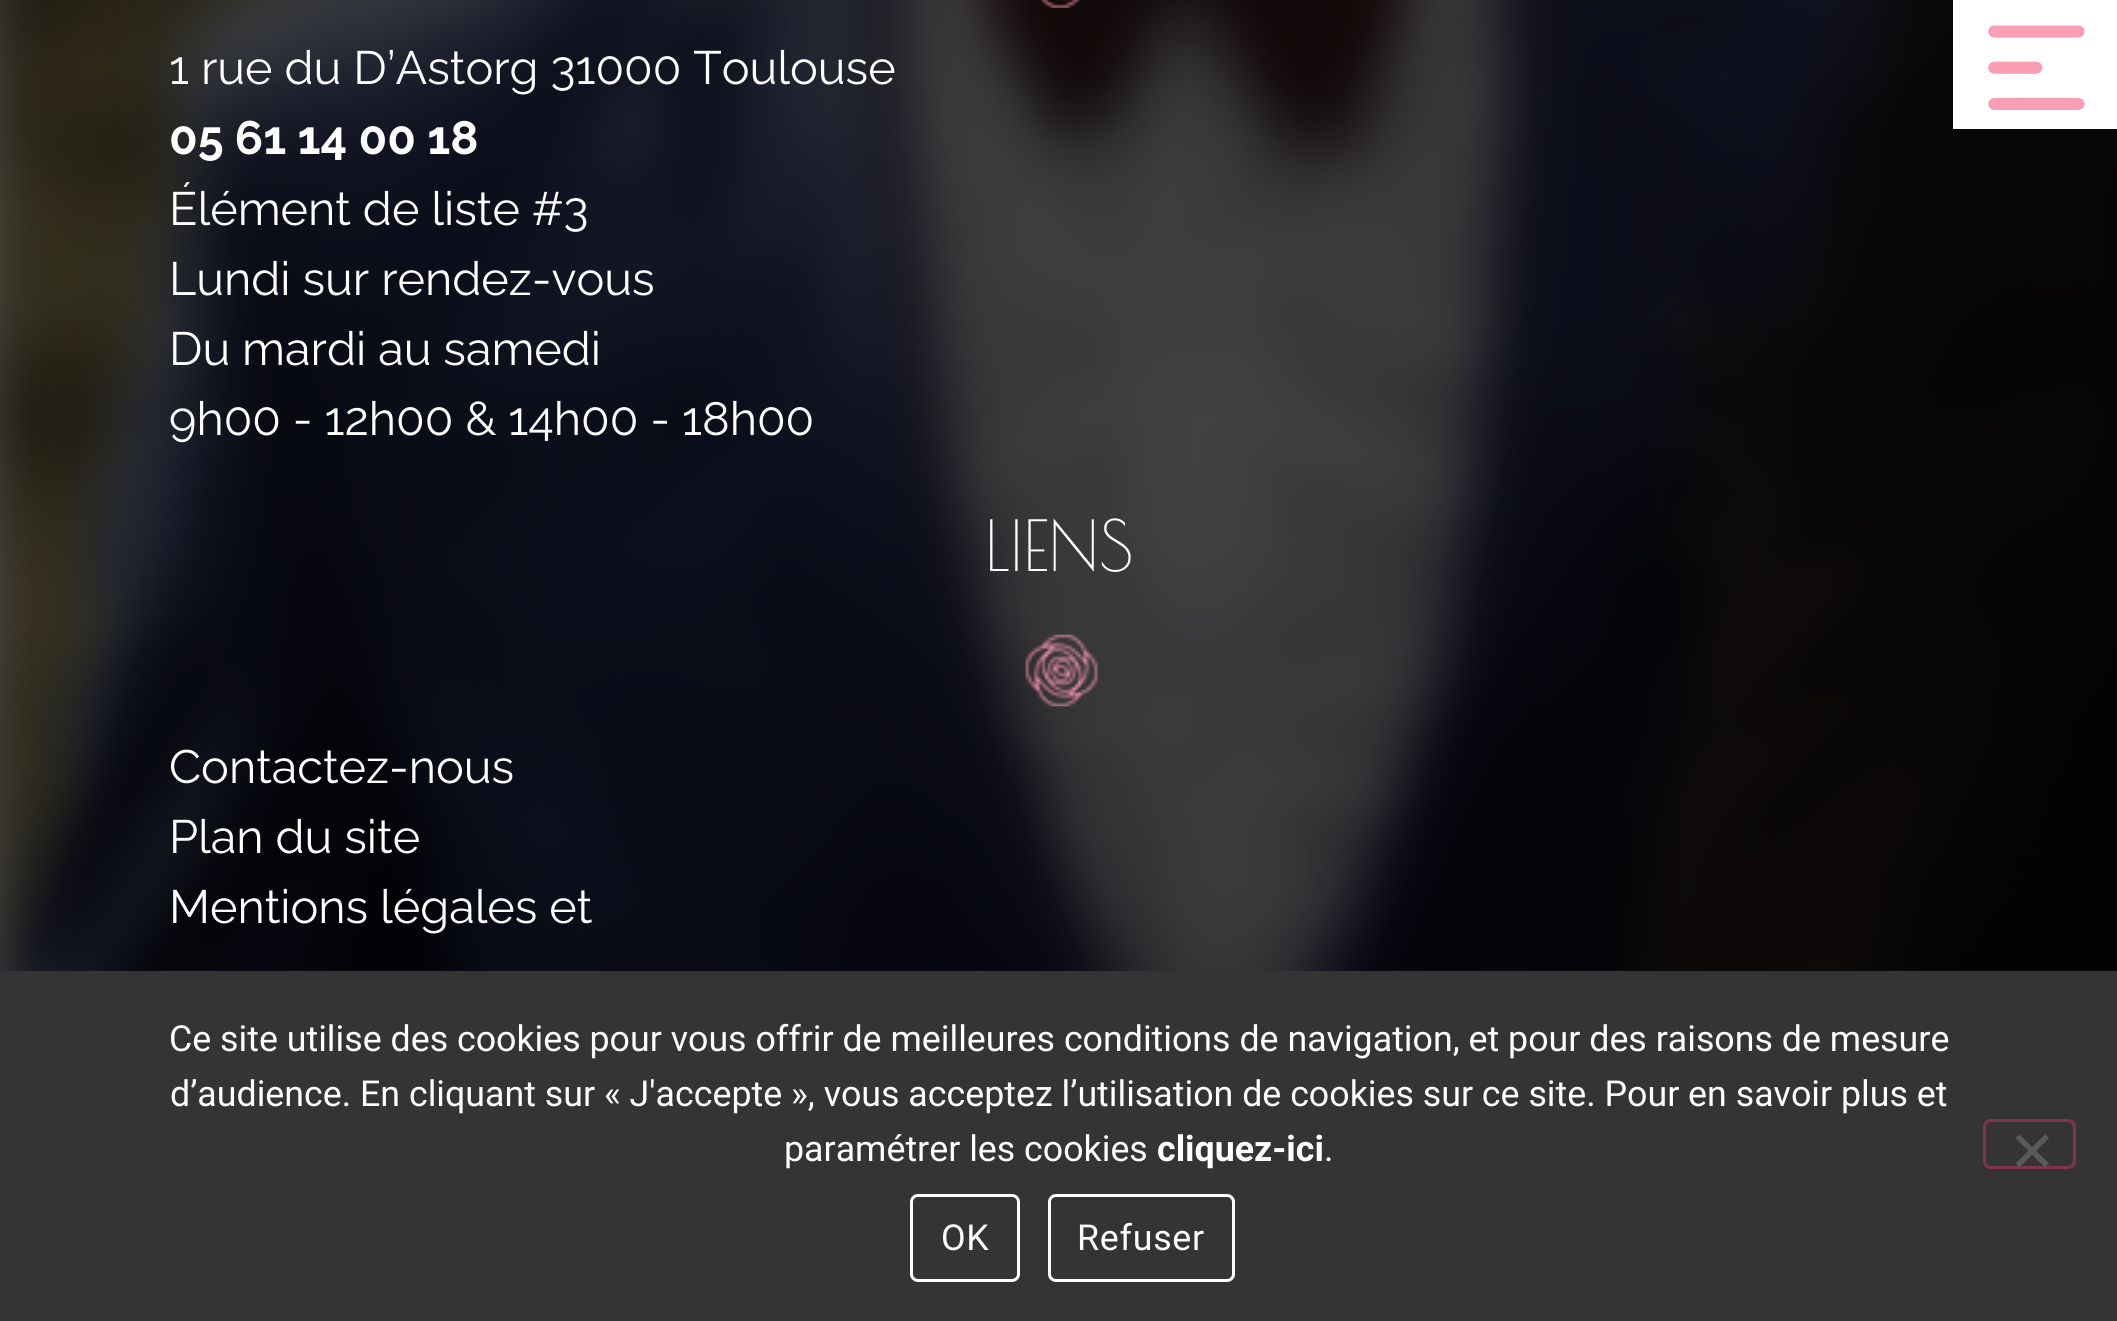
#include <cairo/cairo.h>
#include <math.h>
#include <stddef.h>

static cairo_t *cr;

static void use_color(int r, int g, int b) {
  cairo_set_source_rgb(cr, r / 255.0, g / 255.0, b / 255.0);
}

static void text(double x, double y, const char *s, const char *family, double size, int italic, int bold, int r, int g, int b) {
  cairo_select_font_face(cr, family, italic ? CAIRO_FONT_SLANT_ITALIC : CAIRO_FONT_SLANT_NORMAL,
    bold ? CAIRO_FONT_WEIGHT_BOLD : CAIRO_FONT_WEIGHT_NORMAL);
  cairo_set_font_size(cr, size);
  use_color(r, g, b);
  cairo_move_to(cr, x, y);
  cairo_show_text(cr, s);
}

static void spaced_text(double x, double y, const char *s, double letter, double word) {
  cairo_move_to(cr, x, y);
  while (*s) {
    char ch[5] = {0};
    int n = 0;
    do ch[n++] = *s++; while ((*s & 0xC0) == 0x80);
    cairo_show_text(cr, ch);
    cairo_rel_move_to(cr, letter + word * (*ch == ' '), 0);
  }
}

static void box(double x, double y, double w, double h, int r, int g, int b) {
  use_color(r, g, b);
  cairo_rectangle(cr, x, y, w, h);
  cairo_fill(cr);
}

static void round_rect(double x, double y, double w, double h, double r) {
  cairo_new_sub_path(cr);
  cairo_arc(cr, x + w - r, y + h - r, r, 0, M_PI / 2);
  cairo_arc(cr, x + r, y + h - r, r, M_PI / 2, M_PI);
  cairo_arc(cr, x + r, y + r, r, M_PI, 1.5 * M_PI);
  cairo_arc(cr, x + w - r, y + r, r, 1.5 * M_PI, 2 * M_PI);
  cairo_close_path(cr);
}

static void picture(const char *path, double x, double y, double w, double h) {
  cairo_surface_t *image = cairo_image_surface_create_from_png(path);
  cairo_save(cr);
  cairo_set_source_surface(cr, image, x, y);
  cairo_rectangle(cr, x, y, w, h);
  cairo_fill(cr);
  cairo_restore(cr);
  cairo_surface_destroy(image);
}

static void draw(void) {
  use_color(255, 255, 255);
  cairo_paint(cr);
  picture("img_01.png", 0, 0, 2117, 971);
  picture("img_02.png", 1039, 0, 42, 8);
  picture("img_03.png", 1025, 634, 74, 73);
  box(1953, 0, 164, 129, 255, 255, 255);
  picture("img_04.png", 1988, 25, 97, 85);
  box(0, 971, 2117, 350, 52, 52, 54);
  round_rect(1984.5, 1120.5, 90, 47, 6.5);
  use_color(128, 52, 78);
  cairo_set_line_width(cr, 3);
  cairo_stroke(cr);
  use_color(90, 90, 91);
  cairo_new_path(cr);
  cairo_move_to(cr, 2045, 1134.5);
  cairo_line_to(cr, 2049, 1138);
  cairo_line_to(cr, 2019.5, 1167.5);
  cairo_line_to(cr, 2015.5, 1163.5);
  cairo_close_path(cr);
  cairo_fill(cr);
  cairo_new_path(cr);
  cairo_move_to(cr, 2015.5, 1138);
  cairo_line_to(cr, 2019.5, 1134.5);
  cairo_line_to(cr, 2049, 1163.5);
  cairo_line_to(cr, 2045, 1167.5);
  cairo_close_path(cr);
  cairo_fill(cr);
  round_rect(911.5, 1195.5, 107, 85, 6.5);
  use_color(255, 255, 255);
  cairo_stroke(cr);
  round_rect(1049.5, 1195.5, 184, 85, 6.5);
  cairo_stroke(cr);
  text(169, 84, "1 rue du D’Astorg 31000 Toulouse", "Raleway", 46.75, 0, 0, 255, 255, 255);
  text(169, 154, "05 61 14 00 18", "Raleway", 46.75, 0, 1, 255, 255, 255);
  text(169, 225, "Élément de liste #3", "Raleway", 46.75, 0, 0, 255, 255, 255);
  text(169, 295, "Lundi sur rendez-vous", "Raleway", 46.75, 0, 0, 255, 255, 255);
  text(169, 365, "Du mardi au samedi", "Raleway", 46.75, 0, 0, 255, 255, 255);
  text(169, 435, "9h00 - 12h00 & 14h00 - 18h00", "Raleway", 46.75, 0, 0, 255, 255, 255);
  text(985, 571, "LIENS", "Poiret One", 69, 0, 0, 255, 255, 255);
  text(169, 783, "Contactez-nous", "Raleway", 46.75, 0, 0, 255, 255, 255);
  text(169, 853, "Plan du site", "Raleway", 46.75, 0, 0, 255, 255, 255);
  text(169, 923, "Mentions légales et", "Raleway", 46.75, 0, 0, 255, 255, 255);
  text(169, 1051, "Ce site utilise des cookies pour vous offrir de meilleures conditions de navigation, et pour des raisons de mesure", "Roboto", 35.75, 0, 0, 255, 255, 255);
  text(170, 1106, "d’audience. En cliquant sur « J'accepte », vous acceptez l’utilisation de cookies sur ce site. Pour en savoir plus et", "Roboto", 35.75, 0, 0, 255, 255, 255);
  text(784, 1161, "paramétrer les cookies", "Roboto", 35.75, 0, 0, 255, 255, 255);
  text(1157, 1161, "cliquez-ici", "Roboto", 35.75, 0, 1, 255, 255, 255);
  text(1324, 1161, ".", "Roboto", 35.75, 0, 0, 255, 255, 255);
  spaced_text(941, 1250, "OK", 0.75, 0);
  spaced_text(1077, 1250, "Refuser", 0.75, 0);
}

int main(void) {
  cairo_surface_t *surface = cairo_image_surface_create(CAIRO_FORMAT_RGB24, 2117, 1321);
  cr = cairo_create(surface);
  cairo_font_options_t *options = cairo_font_options_create();
  cairo_font_options_set_hint_metrics(options, CAIRO_HINT_METRICS_OFF);
  cairo_font_options_set_hint_style(options, CAIRO_HINT_STYLE_NONE);
  cairo_set_font_options(cr, options);
  cairo_set_miter_limit(cr, 4);
  draw();
  cairo_surface_write_to_png(surface, "out.png");
  cairo_font_options_destroy(options);
  cairo_destroy(cr);
  cairo_surface_destroy(surface);
  return 0;
}
